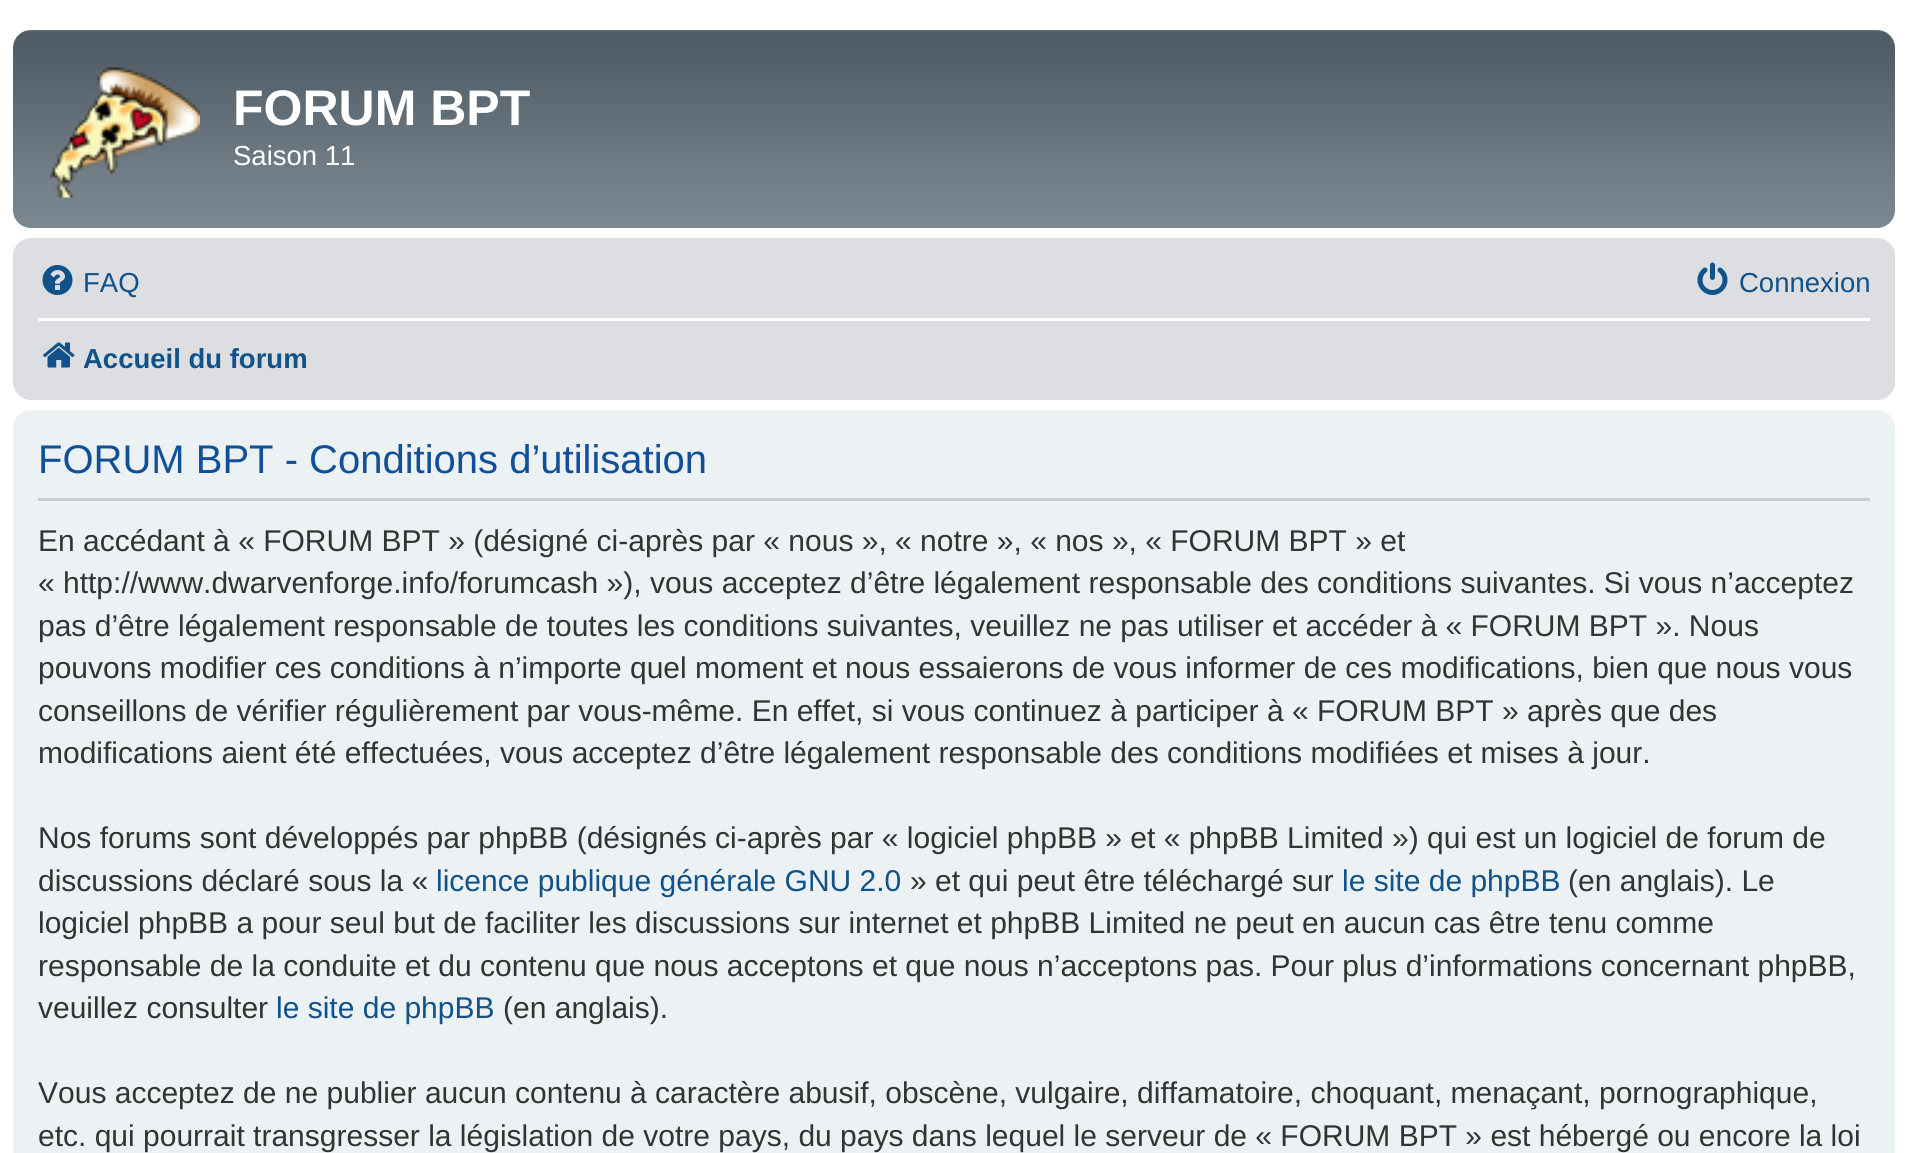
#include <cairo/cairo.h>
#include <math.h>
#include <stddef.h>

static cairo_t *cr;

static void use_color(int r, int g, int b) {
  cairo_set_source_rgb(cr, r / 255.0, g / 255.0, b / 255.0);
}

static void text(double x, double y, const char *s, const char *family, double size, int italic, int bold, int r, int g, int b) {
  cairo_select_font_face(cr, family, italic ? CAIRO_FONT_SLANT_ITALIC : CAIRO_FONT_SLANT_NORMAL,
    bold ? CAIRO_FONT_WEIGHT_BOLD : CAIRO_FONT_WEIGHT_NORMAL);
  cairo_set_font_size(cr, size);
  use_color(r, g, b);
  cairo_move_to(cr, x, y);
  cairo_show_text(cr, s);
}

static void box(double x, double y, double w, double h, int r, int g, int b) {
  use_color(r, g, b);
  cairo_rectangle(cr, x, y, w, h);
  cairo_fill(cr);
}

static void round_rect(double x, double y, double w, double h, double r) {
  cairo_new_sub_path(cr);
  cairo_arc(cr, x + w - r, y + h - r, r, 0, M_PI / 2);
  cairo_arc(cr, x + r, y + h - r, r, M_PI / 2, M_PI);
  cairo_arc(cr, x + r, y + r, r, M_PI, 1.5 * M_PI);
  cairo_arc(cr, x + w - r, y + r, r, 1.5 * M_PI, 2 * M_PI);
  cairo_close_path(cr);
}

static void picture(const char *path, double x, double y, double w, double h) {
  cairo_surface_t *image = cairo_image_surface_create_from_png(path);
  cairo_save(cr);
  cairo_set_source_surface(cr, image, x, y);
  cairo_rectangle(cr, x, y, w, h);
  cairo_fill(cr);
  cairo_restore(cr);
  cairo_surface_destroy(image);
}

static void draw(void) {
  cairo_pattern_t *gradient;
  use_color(255, 255, 255);
  cairo_paint(cr);
  gradient = cairo_pattern_create_linear(954, 30, 954, 228);
  cairo_pattern_add_color_stop_rgba(gradient, 0, 0.431, 0.467, 0.498, 1);
  cairo_pattern_add_color_stop_rgba(gradient, 0.01, 0.314, 0.361, 0.396, 1);
  cairo_pattern_add_color_stop_rgba(gradient, 0.2, 0.337, 0.384, 0.42, 1);
  cairo_pattern_add_color_stop_rgba(gradient, 0.75, 0.451, 0.498, 0.533, 1);
  cairo_pattern_add_color_stop_rgba(gradient, 1, 0.486, 0.533, 0.569, 1);
  cairo_set_source(cr, gradient);
  cairo_pattern_destroy(gradient);
  round_rect(13, 30, 1882, 198, 18);
  cairo_fill(cr);
  picture("img_01.png", 50, 67, 150, 131);
  use_color(220, 222, 226);
  round_rect(13, 238, 1882, 162, 18);
  cairo_fill(cr);
  picture("img_02.png", 42, 265, 31, 30);
  picture("img_03.png", 1697, 262, 31, 33);
  box(38, 318, 1832, 3, 255, 255, 255);
  picture("img_04.png", 43, 342, 32, 26);
  use_color(236, 241, 243);
  round_rect(13, 410, 1882, 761, 18);
  cairo_fill(cr);
  box(38, 498, 1832, 3, 204, 204, 204);
  text(233, 125, "FORUM BPT", "Liberation Sans", 50, 0, 1, 255, 255, 255);
  text(233, 165, "Saison 11", "Liberation Sans", 27.5, 0, 0, 255, 255, 255);
  text(83, 292, "FAQ", "Liberation Sans", 27.5, 0, 0, 16, 82, 137);
  text(1739, 292, "Connexion", "Liberation Sans", 27.5, 0, 0, 16, 82, 137);
  text(83, 368, "Accueil du forum", "Liberation Sans", 27.5, 0, 1, 16, 82, 137);
  text(38, 473, "FORUM BPT - Conditions d’utilisation", "Liberation Sans", 40, 0, 0, 17, 80, 152);
  text(38, 551, "En accédant à « FORUM BPT » (désigné ci-après par « nous », « notre », « nos », « FORUM BPT » et", "Liberation Sans", 30, 0, 0, 51, 51, 51);
  text(38, 593, "« http://www.dwarvenforge.info/forumcash »), vous acceptez d’être légalement responsable des conditions suivantes. Si vous n’acceptez", "Liberation Sans", 30, 0, 0, 51, 51, 51);
  text(38, 636, "pas d’être légalement responsable de toutes les conditions suivantes, veuillez ne pas utiliser et accéder à « FORUM BPT ». Nous", "Liberation Sans", 30, 0, 0, 51, 51, 51);
  text(38, 678, "pouvons modifier ces conditions à n’importe quel moment et nous essaierons de vous informer de ces modifications, bien que nous vous", "Liberation Sans", 30, 0, 0, 51, 51, 51);
  text(38, 721, "conseillons de vérifier régulièrement par vous-même. En effet, si vous continuez à participer à « FORUM BPT » après que des", "Liberation Sans", 30, 0, 0, 51, 51, 51);
  text(38, 763, "modifications aient été effectuées, vous acceptez d’être légalement responsable des conditions modifiées et mises à jour.", "Liberation Sans", 30, 0, 0, 51, 51, 51);
  text(38, 848, "Nos forums sont développés par phpBB (désignés ci-après par « logiciel phpBB » et « phpBB Limited ») qui est un logiciel de forum de", "Liberation Sans", 30, 0, 0, 51, 51, 51);
  text(38, 891, "discussions déclaré sous la «", "Liberation Sans", 30, 0, 0, 51, 51, 51);
  text(436, 891, "licence publique générale GNU 2.0", "Liberation Sans", 30, 0, 0, 16, 82, 137);
  text(910, 891, "» et qui peut être téléchargé sur", "Liberation Sans", 30, 0, 0, 51, 51, 51);
  text(1342, 891, "le site de phpBB", "Liberation Sans", 30, 0, 0, 16, 82, 137);
  text(1568, 891, "(en anglais). Le", "Liberation Sans", 30, 0, 0, 51, 51, 51);
  text(38, 933, "logiciel phpBB a pour seul but de faciliter les discussions sur internet et phpBB Limited ne peut en aucun cas être tenu comme", "Liberation Sans", 30, 0, 0, 51, 51, 51);
  text(38, 976, "responsable de la conduite et du contenu que nous acceptons et que nous n’acceptons pas. Pour plus d’informations concernant phpBB,", "Liberation Sans", 30, 0, 0, 51, 51, 51);
  text(38, 1018, "veuillez consulter", "Liberation Sans", 30, 0, 0, 51, 51, 51);
  text(276, 1018, "le site de phpBB", "Liberation Sans", 30, 0, 0, 16, 82, 137);
  text(503, 1018, "(en anglais).", "Liberation Sans", 30, 0, 0, 51, 51, 51);
  text(38, 1103, "Vous acceptez de ne publier aucun contenu à caractère abusif, obscène, vulgaire, diffamatoire, choquant, menaçant, pornographique,", "Liberation Sans", 30, 0, 0, 51, 51, 51);
  text(38, 1146, "etc. qui pourrait transgresser la législation de votre pays, du pays dans lequel le serveur de « FORUM BPT » est hébergé ou encore la loi", "Liberation Sans", 30, 0, 0, 51, 51, 51);
}

int main(void) {
  cairo_surface_t *surface = cairo_image_surface_create(CAIRO_FORMAT_RGB24, 1906, 1153);
  cr = cairo_create(surface);
  cairo_font_options_t *options = cairo_font_options_create();
  cairo_font_options_set_hint_metrics(options, CAIRO_HINT_METRICS_OFF);
  cairo_font_options_set_hint_style(options, CAIRO_HINT_STYLE_NONE);
  cairo_set_font_options(cr, options);
  cairo_set_miter_limit(cr, 4);
  draw();
  cairo_surface_write_to_png(surface, "out.png");
  cairo_font_options_destroy(options);
  cairo_destroy(cr);
  cairo_surface_destroy(surface);
  return 0;
}
